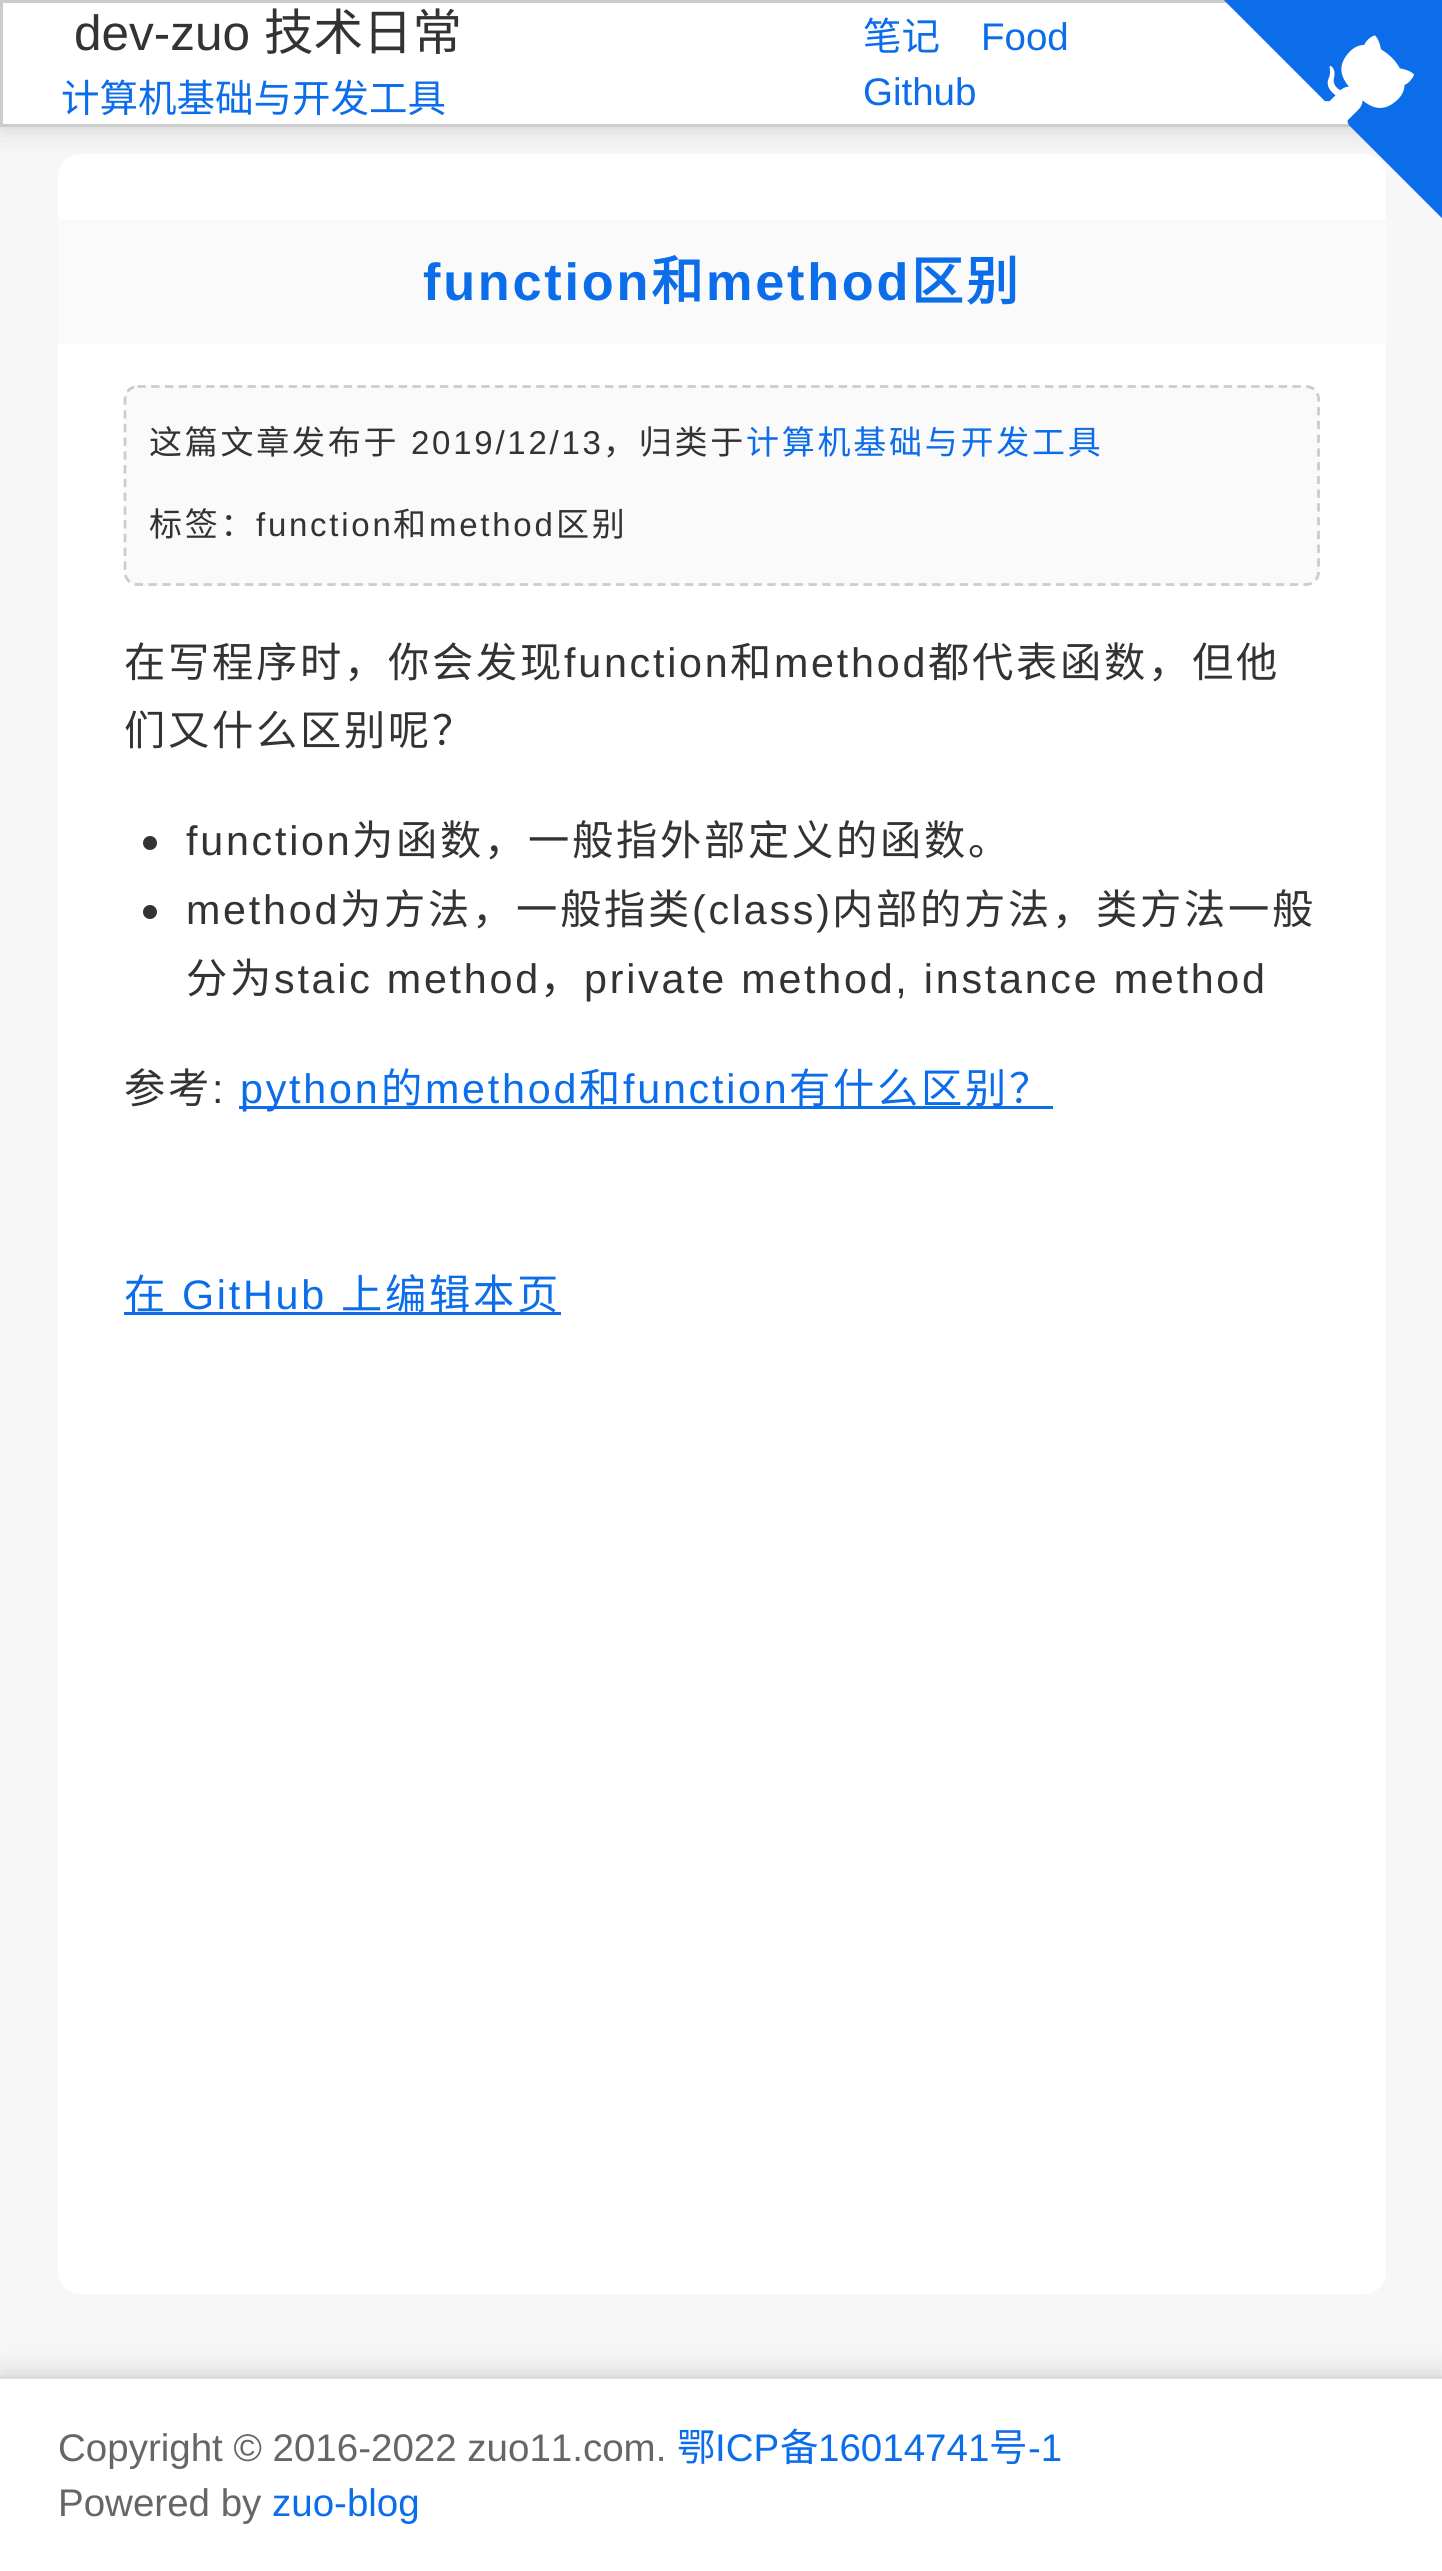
#include <cairo/cairo.h>
#include <math.h>
#include <stddef.h>

static cairo_t *cr;

static void use_color(int r, int g, int b) {
  cairo_set_source_rgb(cr, r / 255.0, g / 255.0, b / 255.0);
}

static void text(double x, double y, const char *s, const char *family, double size, int italic, int bold, int r, int g, int b) {
  cairo_select_font_face(cr, family, italic ? CAIRO_FONT_SLANT_ITALIC : CAIRO_FONT_SLANT_NORMAL,
    bold ? CAIRO_FONT_WEIGHT_BOLD : CAIRO_FONT_WEIGHT_NORMAL);
  cairo_set_font_size(cr, size);
  use_color(r, g, b);
  cairo_move_to(cr, x, y);
  cairo_show_text(cr, s);
}

static void spaced_text(double x, double y, const char *s, double letter, double word) {
  cairo_move_to(cr, x, y);
  while (*s) {
    char ch[5] = {0};
    int n = 0;
    do ch[n++] = *s++; while ((*s & 0xC0) == 0x80);
    cairo_show_text(cr, ch);
    cairo_rel_move_to(cr, letter + word * (*ch == ' '), 0);
  }
}

static void box(double x, double y, double w, double h, int r, int g, int b) {
  use_color(r, g, b);
  cairo_rectangle(cr, x, y, w, h);
  cairo_fill(cr);
}

static void round_rect(double x, double y, double w, double h, double r) {
  cairo_new_sub_path(cr);
  cairo_arc(cr, x + w - r, y + h - r, r, 0, M_PI / 2);
  cairo_arc(cr, x + r, y + h - r, r, M_PI / 2, M_PI);
  cairo_arc(cr, x + r, y + r, r, M_PI, 1.5 * M_PI);
  cairo_arc(cr, x + w - r, y + r, r, 1.5 * M_PI, 2 * M_PI);
  cairo_close_path(cr);
}

static void shadow(double x, double y, double w, double h, double r, double blur, double alpha) {
  cairo_push_group_with_content(cr, CAIRO_CONTENT_ALPHA);
  cairo_set_operator(cr, CAIRO_OPERATOR_SOURCE);
  for (int i = 15; i >= -15 && fmin(w, h) + blur * i / 3 > 0; i -= 2) {
    double e = blur * i / 6;
    cairo_set_source_rgba(cr, 0, 0, 0, alpha * erfc((i - 1) / 8.5) / 2);
    round_rect(x - e, y - e, w + 2 * e, h + 2 * e, fmax(0, fmin(r + e + blur * .6, fmin(w, h) / 2 + e)));
    cairo_fill(cr);
  }
  cairo_pattern_t *soft = cairo_pop_group(cr);
  cairo_mask(cr, soft);
  cairo_pattern_destroy(soft);
}

static void picture(const char *path, double x, double y, double w, double h) {
  cairo_surface_t *image = cairo_image_surface_create_from_png(path);
  cairo_save(cr);
  cairo_set_source_surface(cr, image, x, y);
  cairo_rectangle(cr, x, y, w, h);
  cairo_fill(cr);
  cairo_restore(cr);
  cairo_surface_destroy(image);
}

static void draw(void) {
  use_color(247, 247, 247);
  cairo_paint(cr);
  use_color(255, 255, 255);
  round_rect(58, 154, 1328, 2140, 22);
  cairo_fill(cr);
  use_color(204, 204, 204);
  shadow(0, 0, 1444, 127, 0, 14, 1);
  box(3, 3, 1346, 121, 255, 255, 255);
  cairo_rectangle(cr, 1.5, 1.5, 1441, 124);
  use_color(204, 204, 204);
  cairo_set_line_width(cr, 3);
  cairo_stroke(cr);
  picture("img_01.png", 1224, 0, 218, 219);
  box(58, 220, 1328, 124, 250, 250, 250);
  round_rect(124, 385, 1196, 201, 14);
  cairo_fill(cr);
  cairo_new_path(cr);
  cairo_move_to(cr, 137.5, 386.5);
  cairo_line_to(cr, 1306, 386.5);
  cairo_curve_to(cr, 1313, 386.5, 1318.5, 392, 1318.5, 399);
  cairo_line_to(cr, 1318.5, 572);
  cairo_curve_to(cr, 1318.5, 579, 1313, 584.5, 1306, 584.5);
  cairo_line_to(cr, 137.5, 584.5);
  cairo_curve_to(cr, 130.5, 584.5, 125, 579, 125, 572);
  cairo_line_to(cr, 125, 399);
  cairo_curve_to(cr, 125, 392, 130.5, 386.5, 137.5, 386.5);
  cairo_close_path(cr);
  use_color(204, 204, 204);
  cairo_set_line_width(cr, 2.8);
  cairo_set_dash(cr, (double[]){8.25, 5.5}, 2, 0);
  cairo_stroke(cr);
  use_color(51, 51, 51);
  cairo_arc(cr, 150, 843, 7, 0, 2 * M_PI);
  cairo_fill(cr);
  cairo_arc(cr, 150, 912, 7, 0, 2 * M_PI);
  cairo_fill(cr);
  box(239, 1106, 814, 3, 12, 109, 235);
  box(124, 1312, 437, 3, 12, 109, 235);
  use_color(204, 204, 204);
  shadow(0, 2376, 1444, 195, 0, 14, 1);
  box(0, 2379, 1442, 192, 255, 255, 255);
  box(0, 2376, 1442, 3, 221, 221, 221);
  text(74, 50, "dev-zuo", "Liberation Sans", 49.5, 0, 0, 51, 51, 51);
  text(264, 50, "技术日常", "Noto Sans CJK SC", 49.5, 0, 0, 51, 51, 51);
  text(61, 112, "计算机基础与开发工具", "Noto Sans CJK SC", 38.5, 0, 0, 12, 109, 235);
  text(863, 50, "笔记", "Noto Sans CJK SC", 38.5, 0, 0, 12, 109, 235);
  text(981, 50, "Food", "Liberation Sans", 38.5, 0, 0, 12, 109, 235);
  text(863, 105, "Github", "Liberation Sans", 38.5, 0, 0, 12, 109, 235);
  cairo_select_font_face(cr, "Liberation Sans", CAIRO_FONT_SLANT_NORMAL, CAIRO_FONT_WEIGHT_BOLD);
  cairo_set_font_size(cr, 52.25);
  spaced_text(423, 300, "function", 2.75, 0);
  cairo_select_font_face(cr, "Noto Sans CJK SC", CAIRO_FONT_SLANT_NORMAL, CAIRO_FONT_WEIGHT_BOLD);
  spaced_text(651, 300, "和", 2.75, 0);
  cairo_select_font_face(cr, "Liberation Sans", CAIRO_FONT_SLANT_NORMAL, CAIRO_FONT_WEIGHT_BOLD);
  spaced_text(706, 300, "method", 2.75, 0);
  cairo_select_font_face(cr, "Noto Sans CJK SC", CAIRO_FONT_SLANT_NORMAL, CAIRO_FONT_WEIGHT_BOLD);
  spaced_text(911, 300, "区别", 2.75, 0);
  cairo_select_font_face(cr, "Noto Sans CJK SC", CAIRO_FONT_SLANT_NORMAL, CAIRO_FONT_WEIGHT_NORMAL);
  cairo_set_font_size(cr, 33);
  use_color(51, 51, 51);
  spaced_text(149, 454, "这篇文章发布于", 2.75, 0);
  cairo_select_font_face(cr, "Liberation Sans", CAIRO_FONT_SLANT_NORMAL, CAIRO_FONT_WEIGHT_NORMAL);
  spaced_text(411, 454, "2019/12/13", 2.75, 0);
  cairo_select_font_face(cr, "Noto Sans CJK SC", CAIRO_FONT_SLANT_NORMAL, CAIRO_FONT_WEIGHT_NORMAL);
  spaced_text(603, 454, "，归类于", 2.75, 0);
  use_color(12, 109, 235);
  spaced_text(746, 454, "计算机基础与开发工具", 2.75, 0);
  use_color(51, 51, 51);
  spaced_text(149, 536, "标签：", 2.75, 0);
  cairo_select_font_face(cr, "Liberation Sans", CAIRO_FONT_SLANT_NORMAL, CAIRO_FONT_WEIGHT_NORMAL);
  spaced_text(256, 536, "function", 2.75, 0);
  cairo_select_font_face(cr, "Noto Sans CJK SC", CAIRO_FONT_SLANT_NORMAL, CAIRO_FONT_WEIGHT_NORMAL);
  spaced_text(393, 536, "和", 2.75, 0);
  cairo_select_font_face(cr, "Liberation Sans", CAIRO_FONT_SLANT_NORMAL, CAIRO_FONT_WEIGHT_NORMAL);
  spaced_text(429, 536, "method", 2.75, 0);
  cairo_select_font_face(cr, "Noto Sans CJK SC", CAIRO_FONT_SLANT_NORMAL, CAIRO_FONT_WEIGHT_NORMAL);
  spaced_text(556, 536, "区别", 2.75, 0);
  cairo_set_font_size(cr, 41.25);
  spaced_text(124, 677, "在写程序时，你会发现", 2.75, 0);
  cairo_select_font_face(cr, "Liberation Sans", CAIRO_FONT_SLANT_NORMAL, CAIRO_FONT_WEIGHT_NORMAL);
  spaced_text(564, 677, "function", 2.75, 0);
  cairo_select_font_face(cr, "Noto Sans CJK SC", CAIRO_FONT_SLANT_NORMAL, CAIRO_FONT_WEIGHT_NORMAL);
  spaced_text(730, 677, "和", 2.75, 0);
  cairo_select_font_face(cr, "Liberation Sans", CAIRO_FONT_SLANT_NORMAL, CAIRO_FONT_WEIGHT_NORMAL);
  spaced_text(774, 677, "method", 2.75, 0);
  cairo_select_font_face(cr, "Noto Sans CJK SC", CAIRO_FONT_SLANT_NORMAL, CAIRO_FONT_WEIGHT_NORMAL);
  spaced_text(928, 677, "都代表函数，但他", 2.75, 0);
  spaced_text(124, 745, "们又什么区别呢？", 2.75, 0);
  cairo_select_font_face(cr, "Liberation Sans", CAIRO_FONT_SLANT_NORMAL, CAIRO_FONT_WEIGHT_NORMAL);
  spaced_text(186, 855, "function", 2.75, 0);
  cairo_select_font_face(cr, "Noto Sans CJK SC", CAIRO_FONT_SLANT_NORMAL, CAIRO_FONT_WEIGHT_NORMAL);
  spaced_text(352, 855, "为函数，一般指外部定义的函数。", 2.75, 0);
  cairo_select_font_face(cr, "Liberation Sans", CAIRO_FONT_SLANT_NORMAL, CAIRO_FONT_WEIGHT_NORMAL);
  spaced_text(186, 924, "method", 2.75, 0);
  cairo_select_font_face(cr, "Noto Sans CJK SC", CAIRO_FONT_SLANT_NORMAL, CAIRO_FONT_WEIGHT_NORMAL);
  spaced_text(340, 924, "为方法，一般指类", 2.75, 0);
  cairo_select_font_face(cr, "Liberation Sans", CAIRO_FONT_SLANT_NORMAL, CAIRO_FONT_WEIGHT_NORMAL);
  spaced_text(692, 924, "(class)", 2.75, 0);
  cairo_select_font_face(cr, "Noto Sans CJK SC", CAIRO_FONT_SLANT_NORMAL, CAIRO_FONT_WEIGHT_NORMAL);
  spaced_text(832, 924, "内部的方法，类方法一般", 2.75, 0);
  spaced_text(186, 993, "分为", 2.75, 0);
  cairo_select_font_face(cr, "Liberation Sans", CAIRO_FONT_SLANT_NORMAL, CAIRO_FONT_WEIGHT_NORMAL);
  spaced_text(274, 993, "staic method", 2.75, 0);
  cairo_select_font_face(cr, "Noto Sans CJK SC", CAIRO_FONT_SLANT_NORMAL, CAIRO_FONT_WEIGHT_NORMAL);
  spaced_text(540, 993, "，", 2.75, 0);
  cairo_select_font_face(cr, "Liberation Sans", CAIRO_FONT_SLANT_NORMAL, CAIRO_FONT_WEIGHT_NORMAL);
  spaced_text(584, 993, "private method, instance method", 2.75, 0);
  cairo_select_font_face(cr, "Noto Sans CJK SC", CAIRO_FONT_SLANT_NORMAL, CAIRO_FONT_WEIGHT_NORMAL);
  spaced_text(124, 1103, "参考", 2.75, 0);
  cairo_select_font_face(cr, "Liberation Sans", CAIRO_FONT_SLANT_NORMAL, CAIRO_FONT_WEIGHT_NORMAL);
  spaced_text(212, 1103, ":", 2.75, 0);
  use_color(12, 109, 235);
  spaced_text(240, 1103, "python", 2.75, 0);
  cairo_select_font_face(cr, "Noto Sans CJK SC", CAIRO_FONT_SLANT_NORMAL, CAIRO_FONT_WEIGHT_NORMAL);
  spaced_text(381, 1103, "的", 2.75, 0);
  cairo_select_font_face(cr, "Liberation Sans", CAIRO_FONT_SLANT_NORMAL, CAIRO_FONT_WEIGHT_NORMAL);
  spaced_text(425, 1103, "method", 2.75, 0);
  cairo_select_font_face(cr, "Noto Sans CJK SC", CAIRO_FONT_SLANT_NORMAL, CAIRO_FONT_WEIGHT_NORMAL);
  spaced_text(579, 1103, "和", 2.75, 0);
  cairo_select_font_face(cr, "Liberation Sans", CAIRO_FONT_SLANT_NORMAL, CAIRO_FONT_WEIGHT_NORMAL);
  spaced_text(623, 1103, "function", 2.75, 0);
  cairo_select_font_face(cr, "Noto Sans CJK SC", CAIRO_FONT_SLANT_NORMAL, CAIRO_FONT_WEIGHT_NORMAL);
  spaced_text(789, 1103, "有什么区别？", 2.75, 0);
  spaced_text(124, 1309, "在", 2.75, 0);
  cairo_select_font_face(cr, "Liberation Sans", CAIRO_FONT_SLANT_NORMAL, CAIRO_FONT_WEIGHT_NORMAL);
  spaced_text(182, 1309, "GitHub", 2.75, 0);
  cairo_select_font_face(cr, "Noto Sans CJK SC", CAIRO_FONT_SLANT_NORMAL, CAIRO_FONT_WEIGHT_NORMAL);
  spaced_text(341, 1309, "上编辑本页", 2.75, 0);
  text(58, 2461, "Copyright © 2016-2022 zuo11.com.", "Liberation Sans", 38.5, 0, 0, 102, 102, 102);
  text(677, 2461, "鄂", "Noto Sans CJK SC", 38.5, 0, 0, 12, 109, 235);
  text(715, 2461, "ICP", "Liberation Sans", 38.5, 0, 0, 12, 109, 235);
  text(780, 2461, "备", "Noto Sans CJK SC", 38.5, 0, 0, 12, 109, 235);
  text(818, 2461, "16014741", "Liberation Sans", 38.5, 0, 0, 12, 109, 235);
  text(989, 2461, "号", "Noto Sans CJK SC", 38.5, 0, 0, 12, 109, 235);
  text(1028, 2461, "-1", "Liberation Sans", 38.5, 0, 0, 12, 109, 235);
  text(58, 2516, "Powered by", "Liberation Sans", 38.5, 0, 0, 102, 102, 102);
  text(272, 2516, "zuo-blog", "Liberation Sans", 38.5, 0, 0, 12, 109, 235);
}

int main(void) {
  cairo_surface_t *surface = cairo_image_surface_create(CAIRO_FORMAT_RGB24, 1442, 2571);
  cr = cairo_create(surface);
  cairo_font_options_t *options = cairo_font_options_create();
  cairo_font_options_set_hint_metrics(options, CAIRO_HINT_METRICS_OFF);
  cairo_font_options_set_hint_style(options, CAIRO_HINT_STYLE_NONE);
  cairo_set_font_options(cr, options);
  cairo_set_miter_limit(cr, 4);
  draw();
  cairo_surface_write_to_png(surface, "out.png");
  cairo_font_options_destroy(options);
  cairo_destroy(cr);
  cairo_surface_destroy(surface);
  return 0;
}
